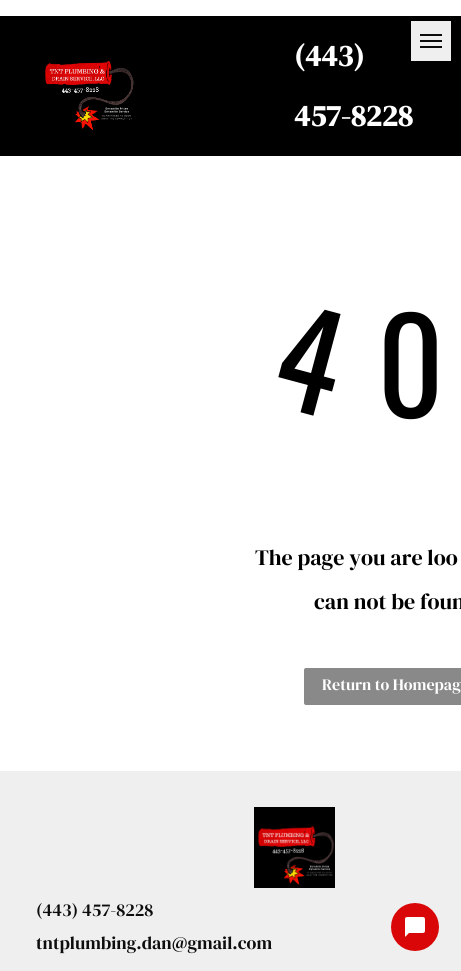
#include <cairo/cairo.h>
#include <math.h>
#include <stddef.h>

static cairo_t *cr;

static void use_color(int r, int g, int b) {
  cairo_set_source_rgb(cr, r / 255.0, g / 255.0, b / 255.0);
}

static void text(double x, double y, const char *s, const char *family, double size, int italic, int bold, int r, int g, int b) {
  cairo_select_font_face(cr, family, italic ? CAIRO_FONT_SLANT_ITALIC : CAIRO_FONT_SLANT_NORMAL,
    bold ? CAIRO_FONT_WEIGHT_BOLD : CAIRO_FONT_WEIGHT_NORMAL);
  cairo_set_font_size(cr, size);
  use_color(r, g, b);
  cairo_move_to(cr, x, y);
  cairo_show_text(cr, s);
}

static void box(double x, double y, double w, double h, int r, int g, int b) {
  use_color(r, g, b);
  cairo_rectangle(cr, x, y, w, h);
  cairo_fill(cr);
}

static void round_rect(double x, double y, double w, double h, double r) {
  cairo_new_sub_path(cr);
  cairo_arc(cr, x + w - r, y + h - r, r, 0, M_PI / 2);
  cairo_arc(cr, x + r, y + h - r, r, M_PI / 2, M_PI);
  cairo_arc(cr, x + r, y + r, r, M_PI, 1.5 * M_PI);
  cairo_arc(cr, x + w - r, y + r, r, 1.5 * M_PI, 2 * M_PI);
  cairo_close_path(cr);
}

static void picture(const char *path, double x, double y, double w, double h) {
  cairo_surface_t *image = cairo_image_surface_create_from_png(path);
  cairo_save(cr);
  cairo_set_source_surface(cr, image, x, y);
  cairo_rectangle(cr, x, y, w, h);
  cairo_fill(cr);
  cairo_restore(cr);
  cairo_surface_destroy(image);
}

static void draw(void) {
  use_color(255, 255, 255);
  cairo_paint(cr);
  box(0, 16, 461, 140, 0, 0, 0);
  picture("img_01.png", 45, 61, 89, 69);
  box(411, 21, 40, 40, 239, 239, 239);
  box(420, 34, 22, 2, 13, 13, 13);
  box(420, 40, 22, 2, 13, 13, 13);
  box(420, 46, 22, 2, 13, 13, 13);
  use_color(137, 137, 137);
  round_rect(304, 668, 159, 37, 2);
  cairo_fill(cr);
  box(0, 771, 461, 200, 239, 239, 239);
  picture("img_02.png", 254, 807, 81, 81);
  picture("img_03.png", 391, 903, 48, 48);
  text(294, 66, "(443)", "DM Serif Display", 30, 0, 1, 255, 255, 255);
  text(294, 126, "457-8228", "DM Serif Display", 30, 0, 1, 255, 255, 255);
  cairo_save(cr);
  cairo_translate(cr, 266, 403);
  cairo_rotate(cr, 15 * M_PI / 180);
  text(0, 0, "4", "Oswald", 130, 0, 0, 0, 0, 0);
  cairo_restore(cr);
  text(377, 418, "0", "Oswald", 130, 0, 0, 0, 0, 0);
  text(255, 565, "The page you are loo", "DM Serif Display", 22, 0, 0, 0, 0, 0);
  text(314, 609, "can not be foun", "DM Serif Display", 22, 0, 0, 0, 0, 0);
  text(322, 690, "Return to Homepag", "DM Serif Display", 16, 0, 0, 255, 255, 255);
  text(36, 916, "(443) 457-8228", "DM Serif Display", 18, 0, 0, 13, 13, 13);
  text(36, 949, "tntplumbing.dan@gmail.com", "DM Serif Display", 18, 0, 0, 13, 13, 13);
}

int main(void) {
  cairo_surface_t *surface = cairo_image_surface_create(CAIRO_FORMAT_RGB24, 461, 971);
  cr = cairo_create(surface);
  cairo_font_options_t *options = cairo_font_options_create();
  cairo_font_options_set_hint_metrics(options, CAIRO_HINT_METRICS_OFF);
  cairo_font_options_set_hint_style(options, CAIRO_HINT_STYLE_NONE);
  cairo_set_font_options(cr, options);
  cairo_set_miter_limit(cr, 4);
  draw();
  cairo_surface_write_to_png(surface, "out.png");
  cairo_font_options_destroy(options);
  cairo_destroy(cr);
  cairo_surface_destroy(surface);
  return 0;
}
